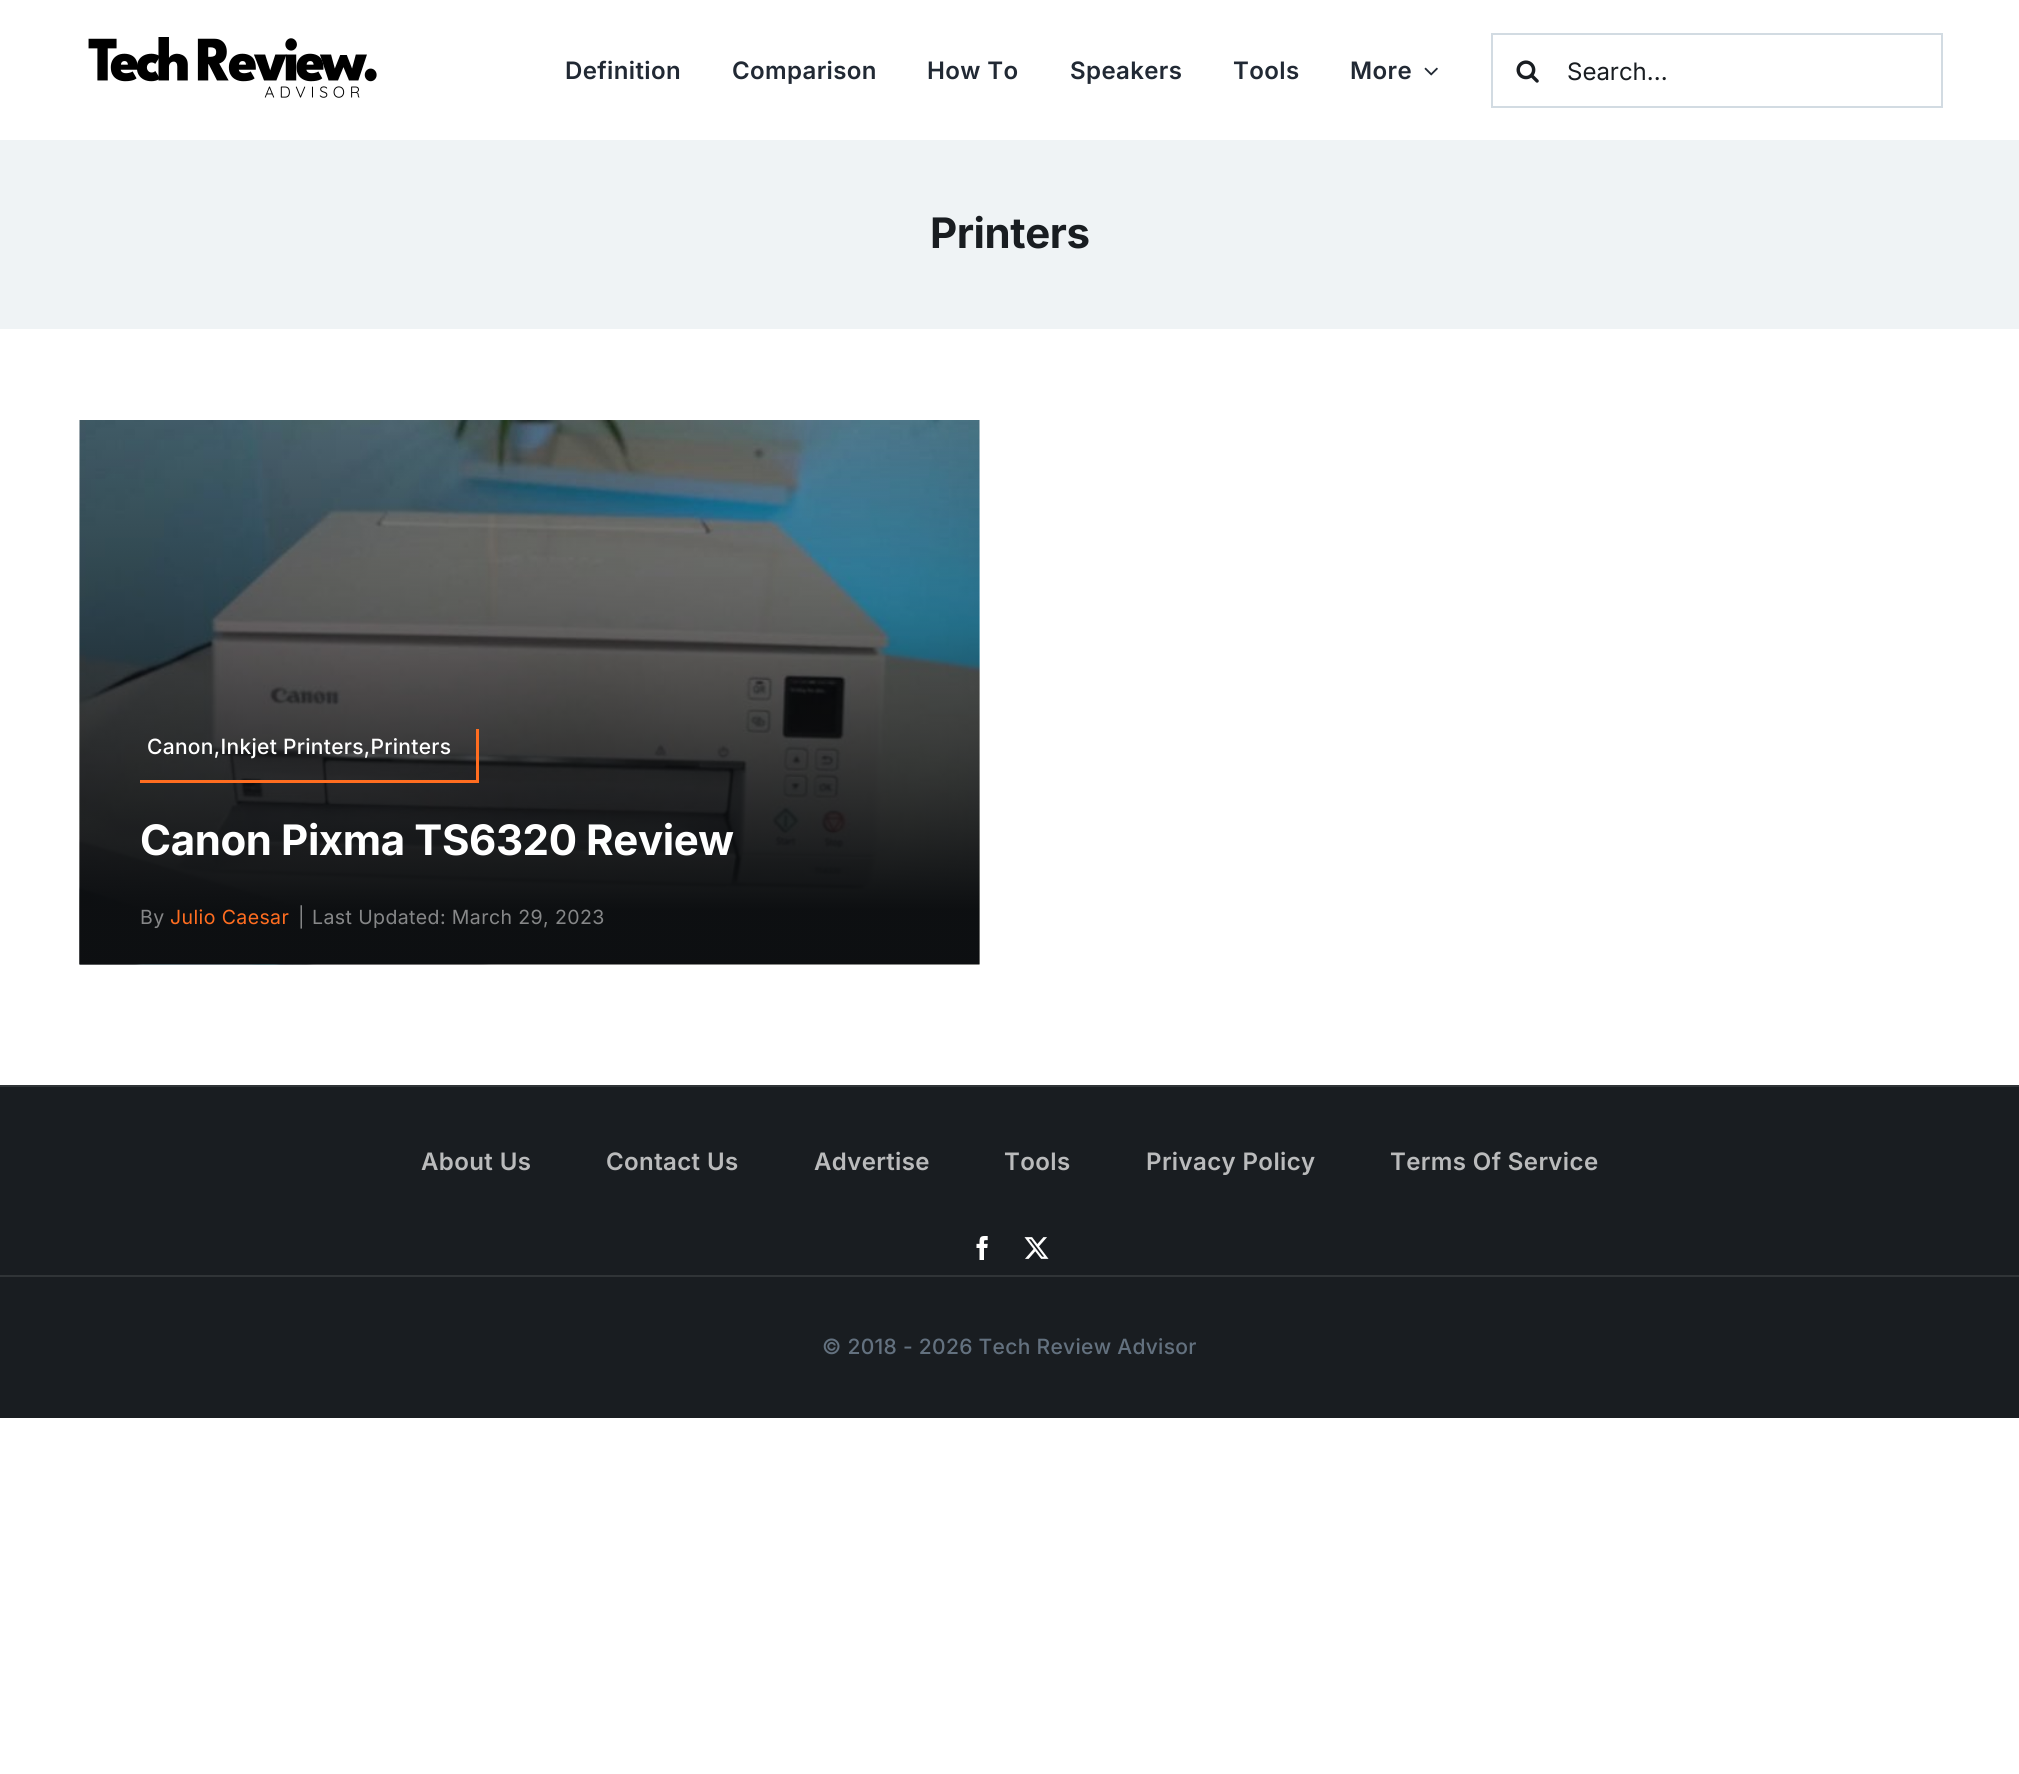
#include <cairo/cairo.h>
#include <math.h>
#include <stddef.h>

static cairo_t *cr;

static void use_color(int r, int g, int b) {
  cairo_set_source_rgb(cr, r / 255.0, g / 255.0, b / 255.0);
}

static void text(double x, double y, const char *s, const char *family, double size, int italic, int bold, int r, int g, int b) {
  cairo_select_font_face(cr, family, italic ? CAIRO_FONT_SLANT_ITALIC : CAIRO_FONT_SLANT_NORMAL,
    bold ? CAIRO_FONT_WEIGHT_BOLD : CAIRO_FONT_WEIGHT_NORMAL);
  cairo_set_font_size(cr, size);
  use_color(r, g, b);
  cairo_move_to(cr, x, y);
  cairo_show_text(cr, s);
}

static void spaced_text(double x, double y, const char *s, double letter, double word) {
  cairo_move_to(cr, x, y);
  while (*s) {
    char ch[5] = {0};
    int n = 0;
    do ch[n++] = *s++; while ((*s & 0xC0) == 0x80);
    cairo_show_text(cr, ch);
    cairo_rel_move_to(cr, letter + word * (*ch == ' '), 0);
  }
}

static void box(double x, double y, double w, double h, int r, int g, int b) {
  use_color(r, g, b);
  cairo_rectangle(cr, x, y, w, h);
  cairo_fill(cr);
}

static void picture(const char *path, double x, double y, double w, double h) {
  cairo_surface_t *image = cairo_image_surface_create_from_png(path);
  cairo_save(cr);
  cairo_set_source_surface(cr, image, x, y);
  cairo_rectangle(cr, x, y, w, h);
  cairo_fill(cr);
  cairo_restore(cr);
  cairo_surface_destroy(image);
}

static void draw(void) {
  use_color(255, 255, 255);
  cairo_paint(cr);
  picture("img_01.png", 88, 37, 289, 61);
  picture("img_02.png", 1424, 67, 14, 9);
  cairo_rectangle(cr, 1492, 34, 450, 73);
  use_color(210, 219, 226);
  cairo_stroke(cr);
  picture("img_03.png", 1516, 60, 23, 23);
  box(0, 140, 2019, 189, 239, 243, 245);
  picture("img_04.png", 79, 420, 901, 545);
  box(476, 729, 3, 54, 255, 109, 32);
  box(140, 780, 339, 3, 255, 109, 32);
  box(0, 1087, 2019, 331, 25, 29, 33);
  box(0, 1085, 2019, 2, 48, 52, 55);
  box(0, 1275, 2019, 2, 48, 52, 55);
  picture("img_05.png", 976, 1236, 12, 24);
  picture("img_06.png", 1024, 1237, 25, 22);
  cairo_select_font_face(cr, "Inter SemiBold", CAIRO_FONT_SLANT_NORMAL, CAIRO_FONT_WEIGHT_NORMAL);
  cairo_set_font_size(cr, 24);
  use_color(33, 41, 52);
  spaced_text(565, 79, "Definition", 0.4, 0);
  spaced_text(732, 79, "Comparison", 0.4, 0);
  spaced_text(927, 79, "How To", 0.4, 0);
  spaced_text(1070, 79, "Speakers", 0.4, 0);
  spaced_text(1233, 79, "Tools", 0.4, 0);
  spaced_text(1350, 79, "More", 0.4, 0);
  text(1567, 80, "Search...", "Inter", 24, 0, 0, 25, 29, 33);
  cairo_select_font_face(cr, "Inter", CAIRO_FONT_SLANT_NORMAL, CAIRO_FONT_WEIGHT_BOLD);
  cairo_set_font_size(cr, 42);
  spaced_text(930, 248, "Printers", -0.4, 0);
  cairo_select_font_face(cr, "Inter Medium", CAIRO_FONT_SLANT_NORMAL, CAIRO_FONT_WEIGHT_NORMAL);
  cairo_set_font_size(cr, 21);
  use_color(255, 255, 255);
  spaced_text(147, 754, "Canon,Inkjet Printers,Printers", 0.3, 0);
  cairo_select_font_face(cr, "Inter", CAIRO_FONT_SLANT_NORMAL, CAIRO_FONT_WEIGHT_BOLD);
  cairo_set_font_size(cr, 42);
  spaced_text(140, 855, "Canon Pixma TS6320 Review", -0.4, 0);
  cairo_select_font_face(cr, "Inter", CAIRO_FONT_SLANT_NORMAL, CAIRO_FONT_WEIGHT_NORMAL);
  cairo_set_font_size(cr, 19.5);
  use_color(134, 135, 136);
  spaced_text(140, 924, "By", 0.4, 0);
  use_color(255, 109, 32);
  spaced_text(170, 924, "Julio Caesar", 0.4, 0);
  use_color(134, 135, 136);
  spaced_text(298, 924, "|", 0.4, 0);
  spaced_text(312, 924, "Last Updated: March 29, 2023", 0.4, 0);
  cairo_select_font_face(cr, "Inter SemiBold", CAIRO_FONT_SLANT_NORMAL, CAIRO_FONT_WEIGHT_NORMAL);
  cairo_set_font_size(cr, 24);
  use_color(186, 187, 188);
  spaced_text(421, 1170, "About Us", 0.4, 0);
  spaced_text(606, 1170, "Contact Us", 0.4, 0);
  spaced_text(814, 1170, "Advertise", 0.4, 0);
  spaced_text(1004, 1170, "Tools", 0.4, 0);
  spaced_text(1146, 1170, "Privacy Policy", 0.4, 0);
  spaced_text(1390, 1170, "Terms Of Service", 0.4, 0);
  cairo_select_font_face(cr, "Inter Medium", CAIRO_FONT_SLANT_NORMAL, CAIRO_FONT_WEIGHT_NORMAL);
  cairo_set_font_size(cr, 21);
  use_color(99, 113, 127);
  spaced_text(822, 1354, "© 2018 - 2026 Tech Review Advisor", 0.3, 0);
}

int main(void) {
  cairo_surface_t *surface = cairo_image_surface_create(CAIRO_FORMAT_RGB24, 2019, 1774);
  cr = cairo_create(surface);
  cairo_font_options_t *options = cairo_font_options_create();
  cairo_font_options_set_hint_metrics(options, CAIRO_HINT_METRICS_OFF);
  cairo_font_options_set_hint_style(options, CAIRO_HINT_STYLE_NONE);
  cairo_set_font_options(cr, options);
  cairo_set_miter_limit(cr, 4);
  draw();
  cairo_surface_write_to_png(surface, "out.png");
  cairo_font_options_destroy(options);
  cairo_destroy(cr);
  cairo_surface_destroy(surface);
  return 0;
}
